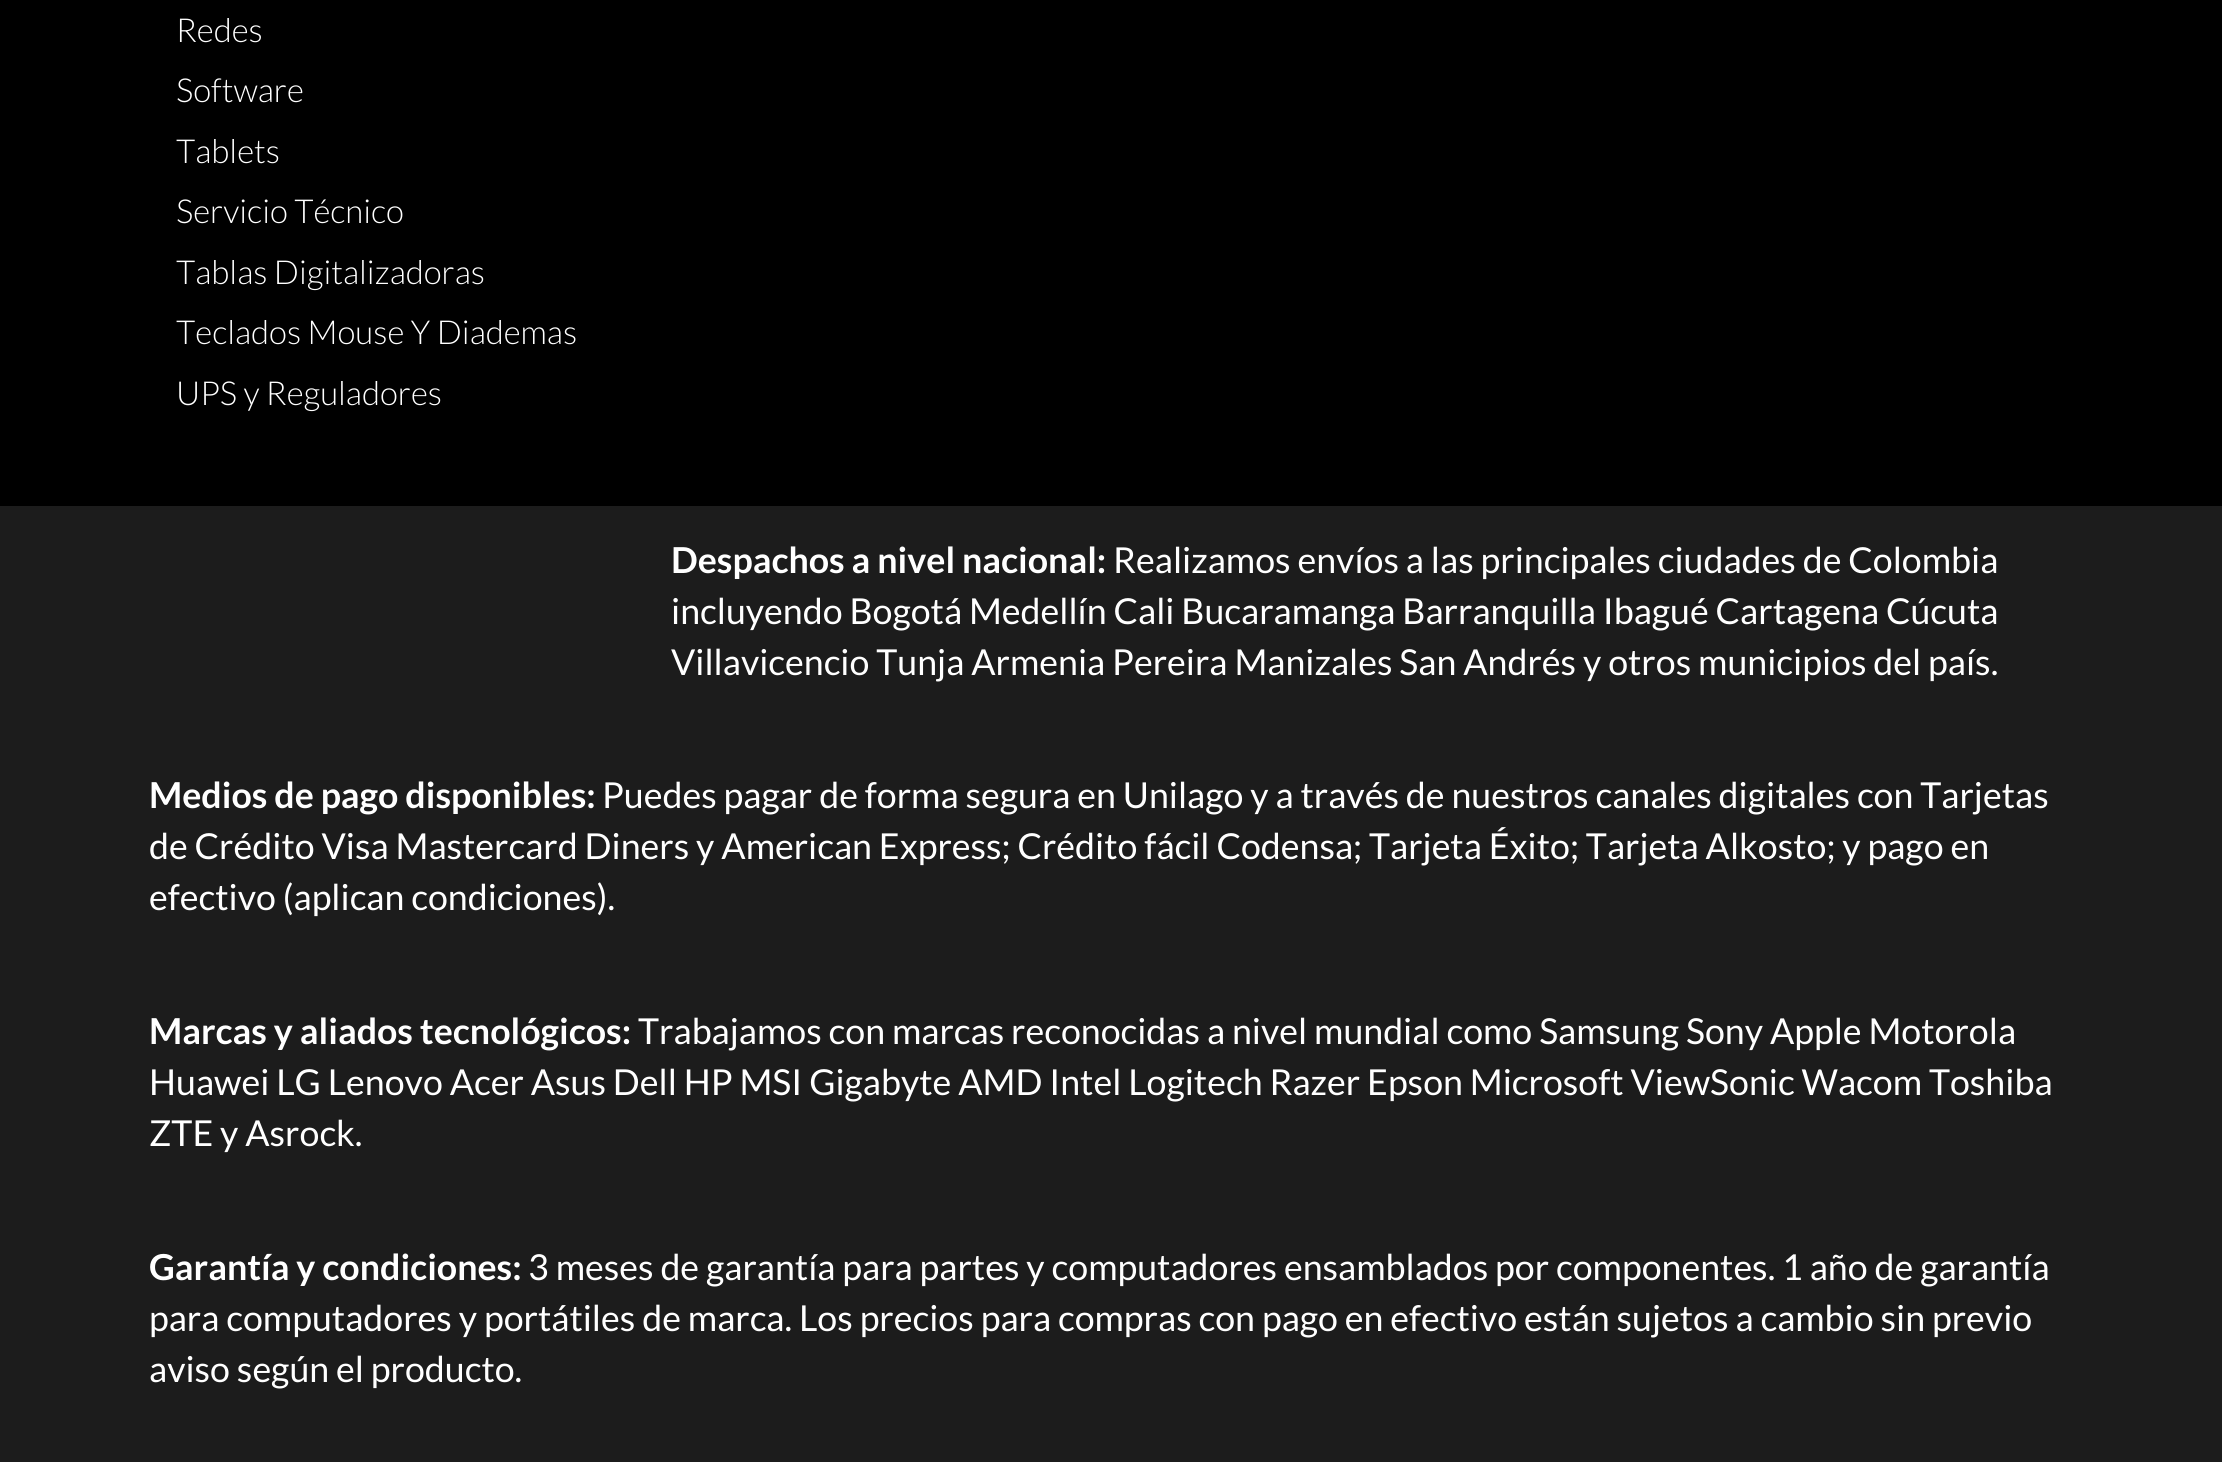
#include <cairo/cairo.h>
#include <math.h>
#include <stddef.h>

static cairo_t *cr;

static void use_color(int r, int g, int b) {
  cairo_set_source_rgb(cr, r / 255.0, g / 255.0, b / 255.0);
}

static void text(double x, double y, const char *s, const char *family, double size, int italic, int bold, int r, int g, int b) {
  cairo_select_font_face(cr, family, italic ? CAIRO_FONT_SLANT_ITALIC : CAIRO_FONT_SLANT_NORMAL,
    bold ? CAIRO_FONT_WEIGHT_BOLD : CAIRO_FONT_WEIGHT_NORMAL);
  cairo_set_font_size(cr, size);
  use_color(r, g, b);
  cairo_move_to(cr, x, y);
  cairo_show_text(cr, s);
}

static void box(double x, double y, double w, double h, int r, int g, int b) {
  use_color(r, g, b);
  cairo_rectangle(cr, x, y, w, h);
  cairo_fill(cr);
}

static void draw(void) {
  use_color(0, 0, 0);
  cairo_paint(cr);
  box(0, 506, 2222, 956, 28, 28, 28);
  text(176, 42, "Redes", "Lato Light", 33, 0, 0, 255, 255, 255);
  text(176, 102, "Software", "Lato Light", 33, 0, 0, 255, 255, 255);
  text(176, 163, "Tablets", "Lato Light", 33, 0, 0, 255, 255, 255);
  text(176, 223, "Servicio Técnico", "Lato Light", 33, 0, 0, 255, 255, 255);
  text(176, 284, "Tablas Digitalizadoras", "Lato Light", 33, 0, 0, 255, 255, 255);
  text(176, 344, "Teclados Mouse Y Diademas", "Lato Light", 33, 0, 0, 255, 255, 255);
  text(176, 405, "UPS y Reguladores", "Lato Light", 33, 0, 0, 255, 255, 255);
  text(671, 573, "Despachos a nivel nacional:", "Lato", 35.75, 0, 1, 255, 255, 255);
  text(1113, 573, "Realizamos envíos a las principales ciudades de Colombia", "Lato", 35.75, 0, 0, 255, 255, 255);
  text(671, 624, "incluyendo Bogotá Medellín Cali Bucaramanga Barranquilla Ibagué Cartagena Cúcuta", "Lato", 35.75, 0, 0, 255, 255, 255);
  text(671, 675, "Villavicencio Tunja Armenia Pereira Manizales San Andrés y otros municipios del país.", "Lato", 35.75, 0, 0, 255, 255, 255);
  text(149, 808, "Medios de pago disponibles:", "Lato", 35.75, 0, 1, 255, 255, 255);
  text(602, 808, "Puedes pagar de forma segura en Unilago y a través de nuestros canales digitales con Tarjetas", "Lato", 35.75, 0, 0, 255, 255, 255);
  text(149, 859, "de Crédito Visa Mastercard Diners y American Express; Crédito fácil Codensa; Tarjeta Éxito; Tarjeta Alkosto; y pago en", "Lato", 35.75, 0, 0, 255, 255, 255);
  text(149, 910, "efectivo (aplican condiciones).", "Lato", 35.75, 0, 0, 255, 255, 255);
  text(149, 1044, "Marcas y aliados tecnológicos:", "Lato", 35.75, 0, 1, 255, 255, 255);
  text(638, 1044, "Trabajamos con marcas reconocidas a nivel mundial como Samsung Sony Apple Motorola", "Lato", 35.75, 0, 0, 255, 255, 255);
  text(149, 1095, "Huawei LG Lenovo Acer Asus Dell HP MSI Gigabyte AMD Intel Logitech Razer Epson Microsoft ViewSonic Wacom Toshiba", "Lato", 35.75, 0, 0, 255, 255, 255);
  text(149, 1146, "ZTE y Asrock.", "Lato", 35.75, 0, 0, 255, 255, 255);
  text(149, 1280, "Garantía y condiciones:", "Lato", 35.75, 0, 1, 255, 255, 255);
  text(528, 1280, "3 meses de garantía para partes y computadores ensamblados por componentes. 1 año de garantía", "Lato", 35.75, 0, 0, 255, 255, 255);
  text(149, 1331, "para computadores y portátiles de marca. Los precios para compras con pago en efectivo están sujetos a cambio sin previo", "Lato", 35.75, 0, 0, 255, 255, 255);
  text(149, 1382, "aviso según el producto.", "Lato", 35.75, 0, 0, 255, 255, 255);
}

int main(void) {
  cairo_surface_t *surface = cairo_image_surface_create(CAIRO_FORMAT_RGB24, 2222, 1462);
  cr = cairo_create(surface);
  cairo_font_options_t *options = cairo_font_options_create();
  cairo_font_options_set_hint_metrics(options, CAIRO_HINT_METRICS_OFF);
  cairo_font_options_set_hint_style(options, CAIRO_HINT_STYLE_NONE);
  cairo_set_font_options(cr, options);
  cairo_set_miter_limit(cr, 4);
  draw();
  cairo_surface_write_to_png(surface, "out.png");
  cairo_font_options_destroy(options);
  cairo_destroy(cr);
  cairo_surface_destroy(surface);
  return 0;
}
